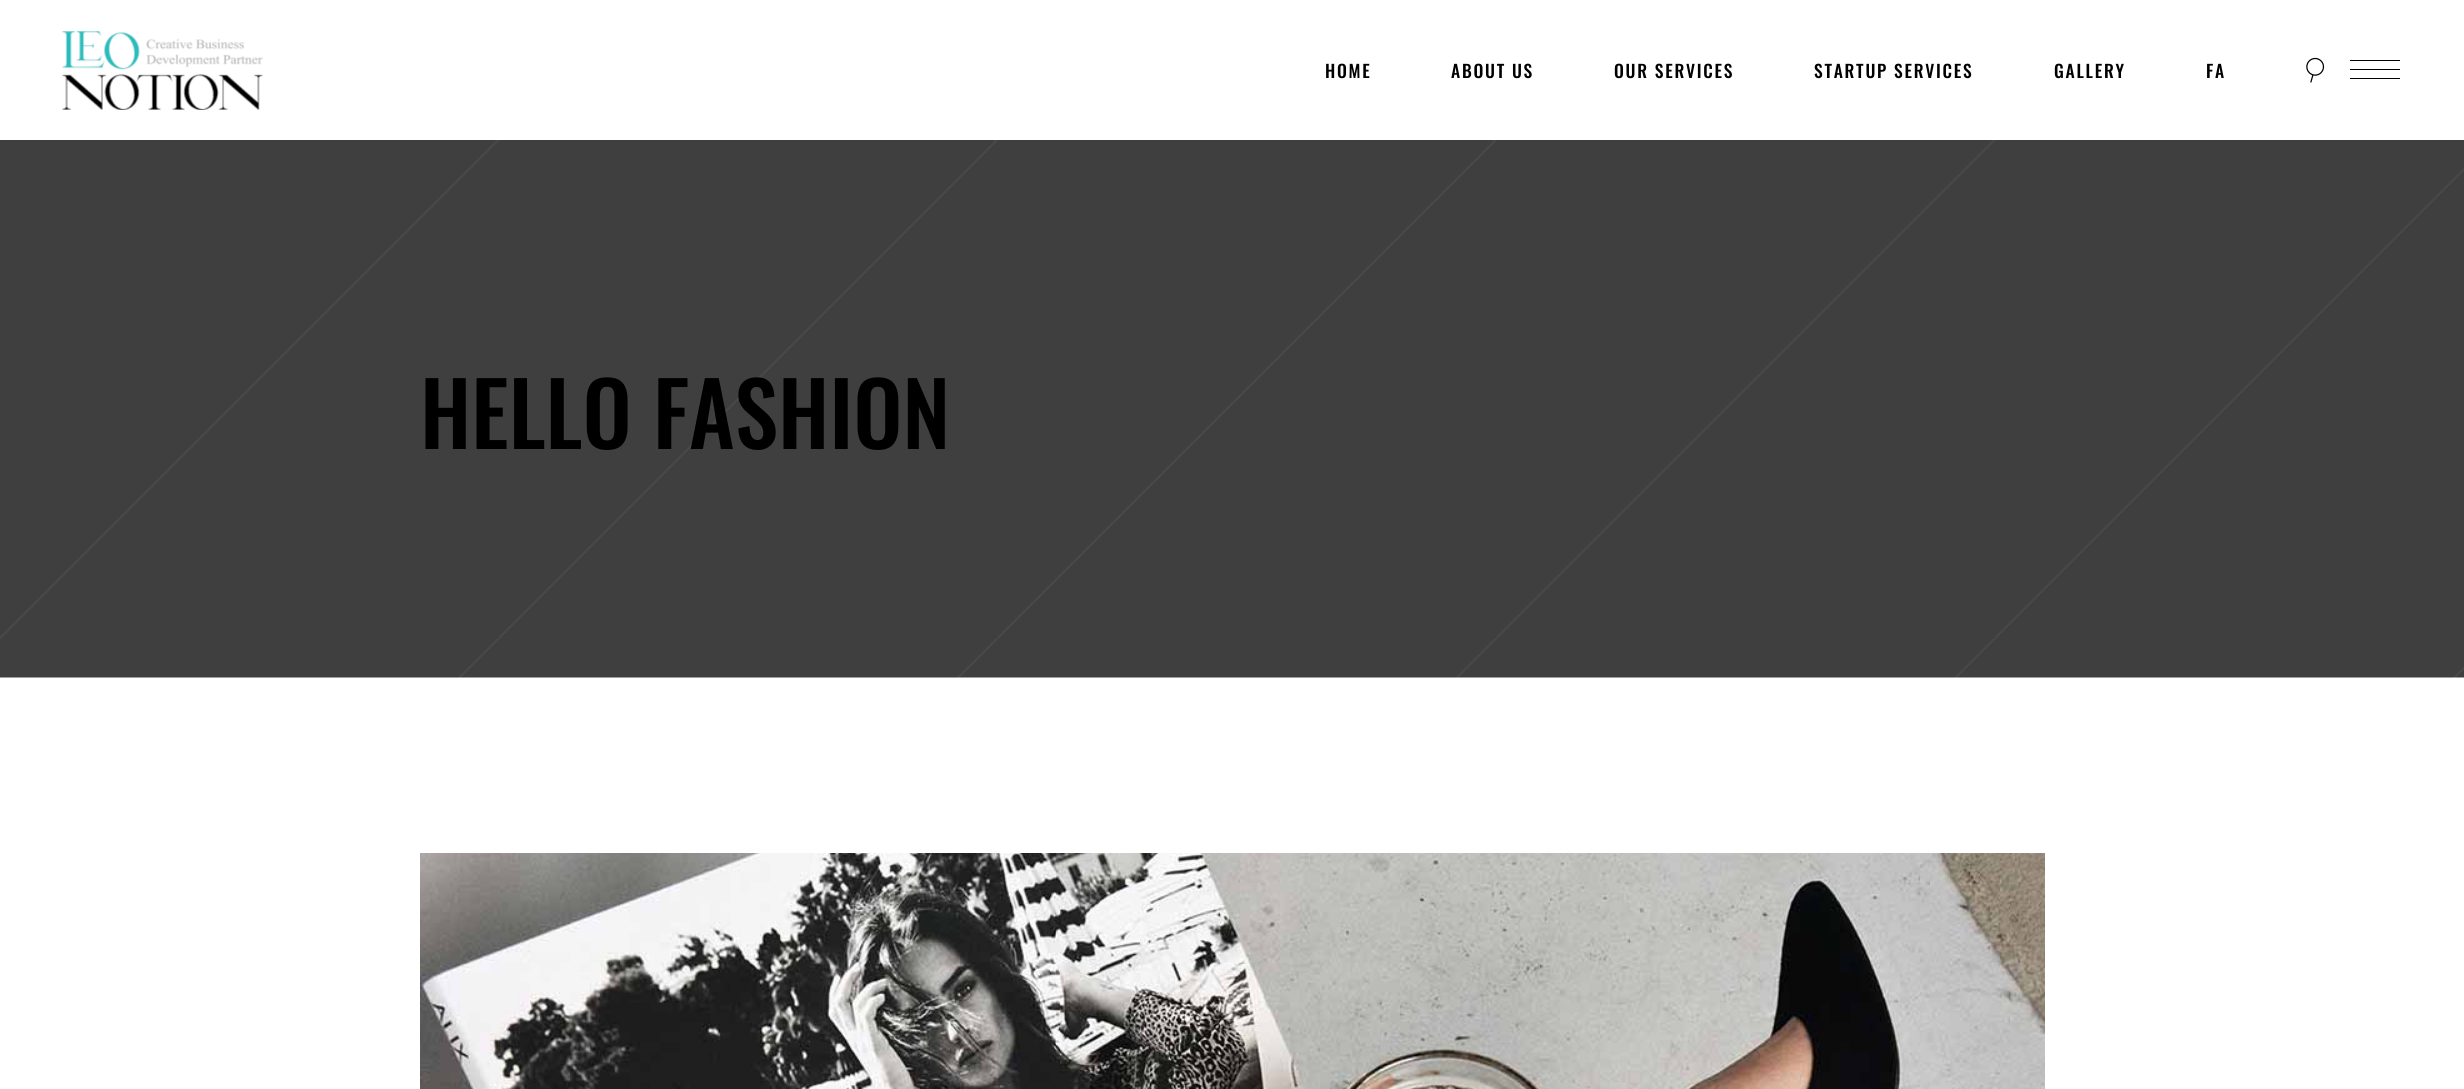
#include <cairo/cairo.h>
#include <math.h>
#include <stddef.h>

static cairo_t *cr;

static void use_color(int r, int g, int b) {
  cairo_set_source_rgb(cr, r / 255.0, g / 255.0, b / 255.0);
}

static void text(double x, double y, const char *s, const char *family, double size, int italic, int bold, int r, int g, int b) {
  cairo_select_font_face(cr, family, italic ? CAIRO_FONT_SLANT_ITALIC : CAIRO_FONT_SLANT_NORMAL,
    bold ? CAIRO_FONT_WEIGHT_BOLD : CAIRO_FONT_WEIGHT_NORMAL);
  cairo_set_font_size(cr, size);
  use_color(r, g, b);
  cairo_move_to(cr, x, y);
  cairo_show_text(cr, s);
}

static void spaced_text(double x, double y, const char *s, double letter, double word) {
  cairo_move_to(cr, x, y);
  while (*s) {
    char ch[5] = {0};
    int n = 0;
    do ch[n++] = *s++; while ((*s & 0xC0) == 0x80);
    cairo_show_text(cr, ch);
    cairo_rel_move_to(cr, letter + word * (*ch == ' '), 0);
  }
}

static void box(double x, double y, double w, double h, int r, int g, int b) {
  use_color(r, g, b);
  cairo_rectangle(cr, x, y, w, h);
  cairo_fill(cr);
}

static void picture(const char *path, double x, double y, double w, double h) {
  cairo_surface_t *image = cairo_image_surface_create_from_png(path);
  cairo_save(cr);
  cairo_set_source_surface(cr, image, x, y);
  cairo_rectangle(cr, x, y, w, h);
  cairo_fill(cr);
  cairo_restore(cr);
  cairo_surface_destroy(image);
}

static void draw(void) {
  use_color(255, 255, 255);
  cairo_paint(cr);
  picture("img_01.png", 62, 31, 201, 79);
  picture("img_02.png", 2306, 57, 19, 26);
  box(2350, 60, 50, 1, 0, 0, 0);
  box(2350, 69, 50, 1, 0, 0, 0);
  box(2350, 78, 50, 1, 0, 0, 0);
  picture("img_03.png", 0, 140, 2464, 538);
  picture("img_04.png", 420, 853, 1625, 236);
  cairo_select_font_face(cr, "Oswald Medium", CAIRO_FONT_SLANT_NORMAL, CAIRO_FONT_WEIGHT_NORMAL);
  cairo_set_font_size(cr, 17.5);
  spaced_text(1325, 78, "HOME", 1.75, 0);
  spaced_text(1451, 78, "ABOUT US", 1.75, 0);
  spaced_text(1614, 78, "OUR SERVICES", 1.75, 0);
  spaced_text(1814, 78, "STARTUP SERVICES", 1.75, 0);
  spaced_text(2054, 78, "GALLERY", 1.75, 0);
  spaced_text(2206, 78, "FA", 1.75, 0);
  text(420, 449, "HELLO FASHION", "Oswald Medium", 87.5, 0, 0, 0, 0, 0);
}

int main(void) {
  cairo_surface_t *surface = cairo_image_surface_create(CAIRO_FORMAT_RGB24, 2464, 1089);
  cr = cairo_create(surface);
  cairo_font_options_t *options = cairo_font_options_create();
  cairo_font_options_set_hint_metrics(options, CAIRO_HINT_METRICS_OFF);
  cairo_font_options_set_hint_style(options, CAIRO_HINT_STYLE_NONE);
  cairo_set_font_options(cr, options);
  cairo_set_miter_limit(cr, 4);
  draw();
  cairo_surface_write_to_png(surface, "out.png");
  cairo_font_options_destroy(options);
  cairo_destroy(cr);
  cairo_surface_destroy(surface);
  return 0;
}
